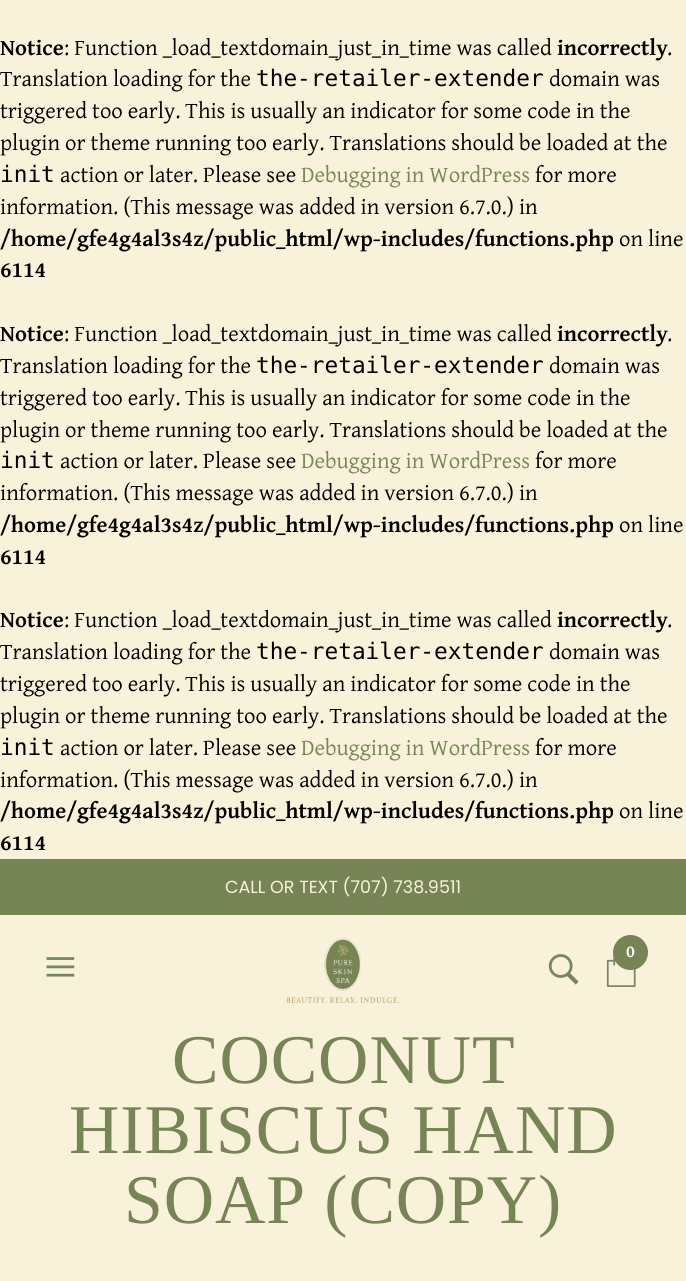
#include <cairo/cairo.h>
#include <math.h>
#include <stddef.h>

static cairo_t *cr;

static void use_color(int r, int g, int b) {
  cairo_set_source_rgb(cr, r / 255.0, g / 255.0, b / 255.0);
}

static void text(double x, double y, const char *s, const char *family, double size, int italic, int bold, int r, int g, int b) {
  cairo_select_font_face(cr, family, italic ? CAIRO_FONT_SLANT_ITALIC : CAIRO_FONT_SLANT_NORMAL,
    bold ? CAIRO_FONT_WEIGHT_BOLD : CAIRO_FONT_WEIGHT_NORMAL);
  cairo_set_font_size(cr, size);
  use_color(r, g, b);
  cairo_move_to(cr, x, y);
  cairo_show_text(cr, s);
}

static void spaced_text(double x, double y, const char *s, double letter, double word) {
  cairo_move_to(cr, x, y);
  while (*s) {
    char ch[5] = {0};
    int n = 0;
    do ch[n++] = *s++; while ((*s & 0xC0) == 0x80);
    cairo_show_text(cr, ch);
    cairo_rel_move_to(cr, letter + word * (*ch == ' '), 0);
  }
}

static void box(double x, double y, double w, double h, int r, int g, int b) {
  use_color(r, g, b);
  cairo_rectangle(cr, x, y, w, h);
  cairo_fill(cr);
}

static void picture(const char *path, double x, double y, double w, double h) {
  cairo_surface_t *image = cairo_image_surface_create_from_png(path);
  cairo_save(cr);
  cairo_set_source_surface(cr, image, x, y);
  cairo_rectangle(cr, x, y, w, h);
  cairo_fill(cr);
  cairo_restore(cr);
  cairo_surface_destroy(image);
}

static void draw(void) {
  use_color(249, 242, 218);
  cairo_paint(cr);
  box(0, 859, 686, 56, 119, 133, 86);
  picture("img_01.png", 286, 937, 114, 66);
  picture("img_02.png", 606, 955, 30, 32);
  cairo_arc(cr, 630.5, 952.5, 17.5, 0, 2 * M_PI);
  cairo_fill(cr);
  picture("img_03.png", 548, 954, 31, 31);
  picture("img_04.png", 46, 957, 29, 20);
  text(0, 55, "Notice", "Gentium Plus", 22.75, 0, 1, 0, 0, 0);
  text(64, 55, ": Function _load_textdomain_just_in_time was called", "Gentium Plus", 22.75, 0, 0, 0, 0, 0);
  text(557, 55, "incorrectly", "Gentium Plus", 22.75, 0, 1, 0, 0, 0);
  text(667, 55, ".", "Gentium Plus", 22.75, 0, 0, 0, 0, 0);
  text(0, 86, "Translation loading for the", "Gentium Plus", 22.75, 0, 0, 0, 0, 0);
  text(256, 86, "the-retailer-extender", "DejaVu Sans Mono", 22.75, 0, 0, 0, 0, 0);
  text(549, 86, "domain was", "Gentium Plus", 22.75, 0, 0, 0, 0, 0);
  text(0, 118, "triggered too early. This is usually an indicator for some code in the", "Gentium Plus", 22.75, 0, 0, 0, 0, 0);
  text(0, 150, "plugin or theme running too early. Translations should be loaded at the", "Gentium Plus", 22.75, 0, 0, 0, 0, 0);
  text(0, 182, "init", "DejaVu Sans Mono", 22.75, 0, 0, 0, 0, 0);
  text(60, 182, "action or later. Please see", "Gentium Plus", 22.75, 0, 0, 0, 0, 0);
  text(301, 182, "Debugging in WordPress", "Gentium Plus", 22.75, 0, 0, 119, 133, 86);
  text(535, 182, "for more", "Gentium Plus", 22.75, 0, 0, 0, 0, 0);
  text(0, 214, "information. (This message was added in version 6.7.0.) in", "Gentium Plus", 22.75, 0, 0, 0, 0, 0);
  text(0, 246, "/home/gfe4g4al3s4z/public_html/wp-includes/functions.php", "Gentium Plus", 22.75, 0, 1, 0, 0, 0);
  text(619, 246, "on line", "Gentium Plus", 22.75, 0, 0, 0, 0, 0);
  text(0, 277, "6114", "Gentium Plus", 22.75, 0, 1, 0, 0, 0);
  text(0, 341, "Notice", "Gentium Plus", 22.75, 0, 1, 0, 0, 0);
  text(64, 341, ": Function _load_textdomain_just_in_time was called", "Gentium Plus", 22.75, 0, 0, 0, 0, 0);
  text(557, 341, "incorrectly", "Gentium Plus", 22.75, 0, 1, 0, 0, 0);
  text(667, 341, ".", "Gentium Plus", 22.75, 0, 0, 0, 0, 0);
  text(0, 373, "Translation loading for the", "Gentium Plus", 22.75, 0, 0, 0, 0, 0);
  text(256, 373, "the-retailer-extender", "DejaVu Sans Mono", 22.75, 0, 0, 0, 0, 0);
  text(549, 373, "domain was", "Gentium Plus", 22.75, 0, 0, 0, 0, 0);
  text(0, 405, "triggered too early. This is usually an indicator for some code in the", "Gentium Plus", 22.75, 0, 0, 0, 0, 0);
  text(0, 437, "plugin or theme running too early. Translations should be loaded at the", "Gentium Plus", 22.75, 0, 0, 0, 0, 0);
  text(0, 468, "init", "DejaVu Sans Mono", 22.75, 0, 0, 0, 0, 0);
  text(60, 468, "action or later. Please see", "Gentium Plus", 22.75, 0, 0, 0, 0, 0);
  text(301, 468, "Debugging in WordPress", "Gentium Plus", 22.75, 0, 0, 119, 133, 86);
  text(535, 468, "for more", "Gentium Plus", 22.75, 0, 0, 0, 0, 0);
  text(0, 500, "information. (This message was added in version 6.7.0.) in", "Gentium Plus", 22.75, 0, 0, 0, 0, 0);
  text(0, 532, "/home/gfe4g4al3s4z/public_html/wp-includes/functions.php", "Gentium Plus", 22.75, 0, 1, 0, 0, 0);
  text(619, 532, "on line", "Gentium Plus", 22.75, 0, 0, 0, 0, 0);
  text(0, 564, "6114", "Gentium Plus", 22.75, 0, 1, 0, 0, 0);
  text(0, 627, "Notice", "Gentium Plus", 22.75, 0, 1, 0, 0, 0);
  text(64, 627, ": Function _load_textdomain_just_in_time was called", "Gentium Plus", 22.75, 0, 0, 0, 0, 0);
  text(557, 627, "incorrectly", "Gentium Plus", 22.75, 0, 1, 0, 0, 0);
  text(667, 627, ".", "Gentium Plus", 22.75, 0, 0, 0, 0, 0);
  text(0, 659, "Translation loading for the", "Gentium Plus", 22.75, 0, 0, 0, 0, 0);
  text(256, 659, "the-retailer-extender", "DejaVu Sans Mono", 22.75, 0, 0, 0, 0, 0);
  text(549, 659, "domain was", "Gentium Plus", 22.75, 0, 0, 0, 0, 0);
  text(0, 691, "triggered too early. This is usually an indicator for some code in the", "Gentium Plus", 22.75, 0, 0, 0, 0, 0);
  text(0, 723, "plugin or theme running too early. Translations should be loaded at the", "Gentium Plus", 22.75, 0, 0, 0, 0, 0);
  text(0, 755, "init", "DejaVu Sans Mono", 22.75, 0, 0, 0, 0, 0);
  text(60, 755, "action or later. Please see", "Gentium Plus", 22.75, 0, 0, 0, 0, 0);
  text(301, 755, "Debugging in WordPress", "Gentium Plus", 22.75, 0, 0, 119, 133, 86);
  text(535, 755, "for more", "Gentium Plus", 22.75, 0, 0, 0, 0, 0);
  text(0, 787, "information. (This message was added in version 6.7.0.) in", "Gentium Plus", 22.75, 0, 0, 0, 0, 0);
  text(0, 818, "/home/gfe4g4al3s4z/public_html/wp-includes/functions.php", "Gentium Plus", 22.75, 0, 1, 0, 0, 0);
  text(619, 818, "on line", "Gentium Plus", 22.75, 0, 0, 0, 0, 0);
  text(0, 850, "6114", "Gentium Plus", 22.75, 0, 1, 0, 0, 0);
  text(225, 893, "CALL OR TEXT (707) 738.9511", "Poppins", 17.5, 0, 0, 249, 242, 218);
  text(626, 957, "0", "Gentium Plus", 17.5, 0, 1, 255, 255, 255);
  cairo_select_font_face(cr, "Liberation Serif", CAIRO_FONT_SLANT_NORMAL, CAIRO_FONT_WEIGHT_NORMAL);
  cairo_set_font_size(cr, 69.75);
  use_color(119, 133, 86);
  spaced_text(172, 1083, "COCONUT", 0.9, 0);
  spaced_text(69, 1153, "HIBISCUS HAND", 0.9, 0);
  spaced_text(124, 1223, "SOAP (COPY)", 0.9, 0);
}

int main(void) {
  cairo_surface_t *surface = cairo_image_surface_create(CAIRO_FORMAT_RGB24, 686, 1281);
  cr = cairo_create(surface);
  cairo_font_options_t *options = cairo_font_options_create();
  cairo_font_options_set_hint_metrics(options, CAIRO_HINT_METRICS_OFF);
  cairo_font_options_set_hint_style(options, CAIRO_HINT_STYLE_NONE);
  cairo_set_font_options(cr, options);
  cairo_set_miter_limit(cr, 4);
  draw();
  cairo_surface_write_to_png(surface, "out.png");
  cairo_font_options_destroy(options);
  cairo_destroy(cr);
  cairo_surface_destroy(surface);
  return 0;
}
